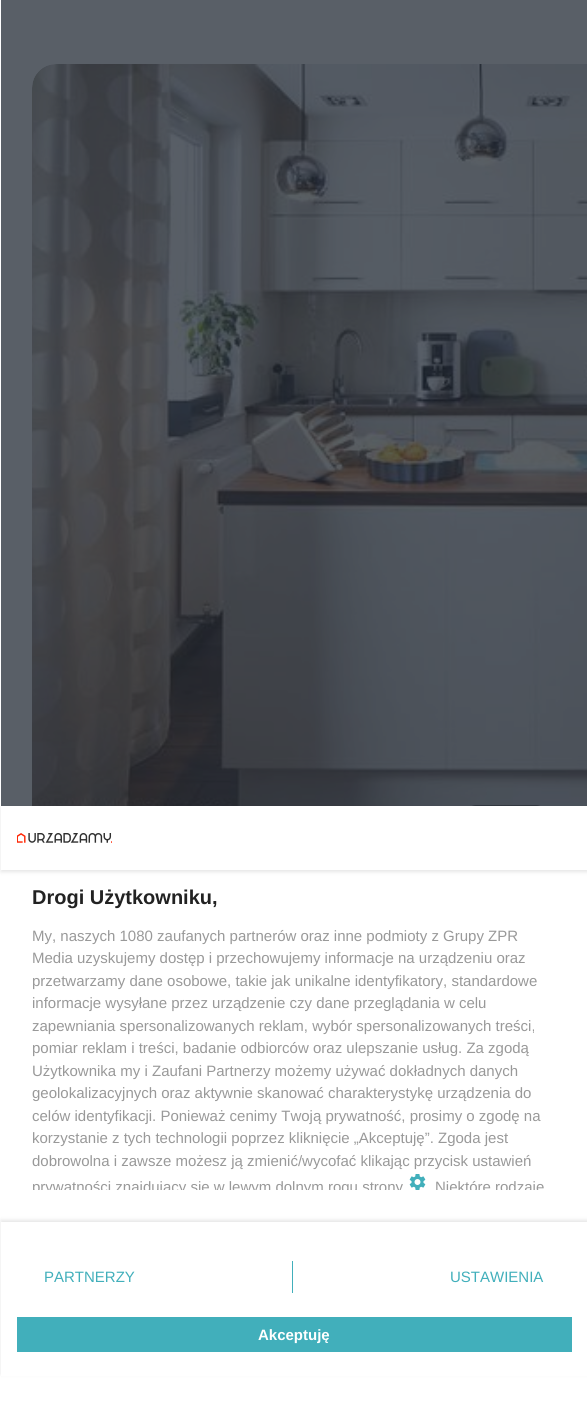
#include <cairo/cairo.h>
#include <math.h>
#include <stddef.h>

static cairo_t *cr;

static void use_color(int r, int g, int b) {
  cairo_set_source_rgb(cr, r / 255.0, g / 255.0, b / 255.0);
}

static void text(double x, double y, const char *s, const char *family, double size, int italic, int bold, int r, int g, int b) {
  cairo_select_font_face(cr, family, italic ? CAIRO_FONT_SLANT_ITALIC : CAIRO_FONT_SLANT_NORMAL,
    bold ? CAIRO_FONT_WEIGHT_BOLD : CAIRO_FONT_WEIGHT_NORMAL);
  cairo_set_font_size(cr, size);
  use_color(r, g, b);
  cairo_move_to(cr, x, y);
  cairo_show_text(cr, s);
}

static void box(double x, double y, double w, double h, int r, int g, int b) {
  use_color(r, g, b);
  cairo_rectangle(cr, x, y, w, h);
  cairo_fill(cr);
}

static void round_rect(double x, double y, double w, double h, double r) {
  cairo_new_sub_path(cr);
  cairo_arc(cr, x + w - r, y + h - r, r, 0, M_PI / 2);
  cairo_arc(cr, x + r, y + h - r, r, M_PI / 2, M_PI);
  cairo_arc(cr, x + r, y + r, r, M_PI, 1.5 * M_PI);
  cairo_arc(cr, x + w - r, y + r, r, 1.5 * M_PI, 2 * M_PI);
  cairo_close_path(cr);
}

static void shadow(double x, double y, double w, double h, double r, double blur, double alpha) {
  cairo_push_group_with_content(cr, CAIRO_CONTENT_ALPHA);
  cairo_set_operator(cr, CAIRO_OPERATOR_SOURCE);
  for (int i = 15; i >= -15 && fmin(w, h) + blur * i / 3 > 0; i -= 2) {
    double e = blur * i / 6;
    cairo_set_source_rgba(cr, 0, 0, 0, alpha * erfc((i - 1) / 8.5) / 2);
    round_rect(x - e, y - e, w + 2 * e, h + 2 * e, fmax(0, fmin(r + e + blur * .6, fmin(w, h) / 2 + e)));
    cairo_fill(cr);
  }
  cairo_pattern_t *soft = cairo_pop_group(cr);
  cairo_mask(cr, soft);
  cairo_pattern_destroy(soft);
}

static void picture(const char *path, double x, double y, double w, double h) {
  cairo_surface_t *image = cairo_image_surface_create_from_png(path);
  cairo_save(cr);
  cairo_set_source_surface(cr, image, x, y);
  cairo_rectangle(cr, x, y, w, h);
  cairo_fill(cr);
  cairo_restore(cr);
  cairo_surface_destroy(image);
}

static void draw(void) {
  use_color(255, 255, 255);
  cairo_paint(cr);
  box(1, 0, 586, 806, 89, 95, 103);
  picture("img_01.png", 32, 64, 555, 742);
  round_rect(469, 807, 74, 14, 7);
  cairo_set_source_rgba(cr, 0.098, 0.122, 0.153, 0.5);
  cairo_set_line_width(cr, 4);
  cairo_stroke(cr);
  box(467, 806, 78, 17, 255, 255, 255);
  cairo_save(cr);
  cairo_set_fill_rule(cr, CAIRO_FILL_RULE_EVEN_ODD);
  cairo_new_path(cr);
  cairo_move_to(cr, 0, 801);
  cairo_line_to(cr, 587, 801);
  cairo_line_to(cr, 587, 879);
  cairo_line_to(cr, 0, 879);
  cairo_close_path(cr);
  cairo_move_to(cr, 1, 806);
  cairo_line_to(cr, 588, 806);
  cairo_line_to(cr, 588, 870);
  cairo_line_to(cr, 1, 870);
  cairo_close_path(cr);
  cairo_clip(cr);
  use_color(0, 0, 0);
  shadow(1, 808, 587, 64, 0, 2, 0.1);
  cairo_restore(cr);
  picture("img_02.png", 17, 833, 95, 10);
  picture("img_03.png", 409, 1174, 17, 16);
  cairo_save(cr);
  cairo_set_fill_rule(cr, CAIRO_FILL_RULE_EVEN_ODD);
  cairo_new_path(cr);
  cairo_move_to(cr, 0, 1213);
  cairo_line_to(cr, 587, 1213);
  cairo_line_to(cr, 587, 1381);
  cairo_line_to(cr, 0, 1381);
  cairo_close_path(cr);
  cairo_move_to(cr, 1, 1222);
  cairo_line_to(cr, 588, 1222);
  cairo_line_to(cr, 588, 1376);
  cairo_line_to(cr, 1, 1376);
  cairo_close_path(cr);
  cairo_clip(cr);
  use_color(0, 0, 0);
  shadow(1, 1220, 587, 154, 0, 2, 0.1);
  cairo_restore(cr);
  box(292, 1261, 1, 32, 65, 175, 187);
  box(17, 1317, 555, 35, 65, 175, 187);
  text(32, 904, "Drogi Użytkowniku,", "Liberation Sans", 20, 0, 1, 34, 34, 34);
  text(32, 941, "My, naszych 1080 zaufanych partnerów oraz inne podmioty z Grupy ZPR", "Liberation Sans", 15, 0, 0, 153, 153, 153);
  text(32, 963, "Media uzyskujemy dostęp i przechowujemy informacje na urządzeniu oraz", "Liberation Sans", 15, 0, 0, 153, 153, 153);
  text(32, 986, "przetwarzamy dane osobowe, takie jak unikalne identyfikatory, standardowe", "Liberation Sans", 15, 0, 0, 153, 153, 153);
  text(32, 1008, "informacje wysyłane przez urządzenie czy dane przeglądania w celu", "Liberation Sans", 15, 0, 0, 153, 153, 153);
  text(32, 1031, "zapewniania spersonalizowanych reklam, wybór spersonalizowanych treści,", "Liberation Sans", 15, 0, 0, 153, 153, 153);
  text(32, 1053, "pomiar reklam i treści, badanie odbiorców oraz ulepszanie usług. Za zgodą", "Liberation Sans", 15, 0, 0, 153, 153, 153);
  text(32, 1076, "Użytkownika my i Zaufani Partnerzy możemy używać dokładnych danych", "Liberation Sans", 15, 0, 0, 153, 153, 153);
  text(32, 1098, "geolokalizacyjnych oraz aktywnie skanować charakterystykę urządzenia do", "Liberation Sans", 15, 0, 0, 153, 153, 153);
  text(32, 1121, "celów identyfikacji. Ponieważ cenimy Twoją prywatność, prosimy o zgodę na", "Liberation Sans", 15, 0, 0, 153, 153, 153);
  text(32, 1143, "korzystanie z tych technologii poprzez kliknięcie „Akceptuję”. Zgoda jest", "Liberation Sans", 15, 0, 0, 153, 153, 153);
  text(32, 1166, "dobrowolna i zawsze możesz ją zmienić/wycofać klikając przycisk ustawień", "Liberation Sans", 15, 0, 0, 153, 153, 153);
  cairo_save(cr);
  cairo_rectangle(cr, 1, 870, 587, 320);
  cairo_clip(cr);
  text(32, 1192, "prywatności znajdujący się w lewym dolnym rogu strony", "Liberation Sans", 15, 0, 0, 153, 153, 153);
  text(435, 1192, "Niektóre rodzaje", "Liberation Sans", 15, 0, 0, 153, 153, 153);
  cairo_restore(cr);
  text(44, 1282, "PARTNERZY", "Liberation Sans", 15, 0, 0, 65, 175, 187);
  text(450, 1282, "USTAWIENIA", "Liberation Sans", 15, 0, 0, 65, 175, 187);
  text(258, 1340, "Akceptuję", "Liberation Sans", 15, 0, 1, 255, 255, 255);
}

int main(void) {
  cairo_surface_t *surface = cairo_image_surface_create(CAIRO_FORMAT_RGB24, 587, 1402);
  cr = cairo_create(surface);
  cairo_font_options_t *options = cairo_font_options_create();
  cairo_font_options_set_hint_metrics(options, CAIRO_HINT_METRICS_OFF);
  cairo_font_options_set_hint_style(options, CAIRO_HINT_STYLE_NONE);
  cairo_set_font_options(cr, options);
  cairo_set_miter_limit(cr, 4);
  draw();
  cairo_surface_write_to_png(surface, "out.png");
  cairo_font_options_destroy(options);
  cairo_destroy(cr);
  cairo_surface_destroy(surface);
  return 0;
}
